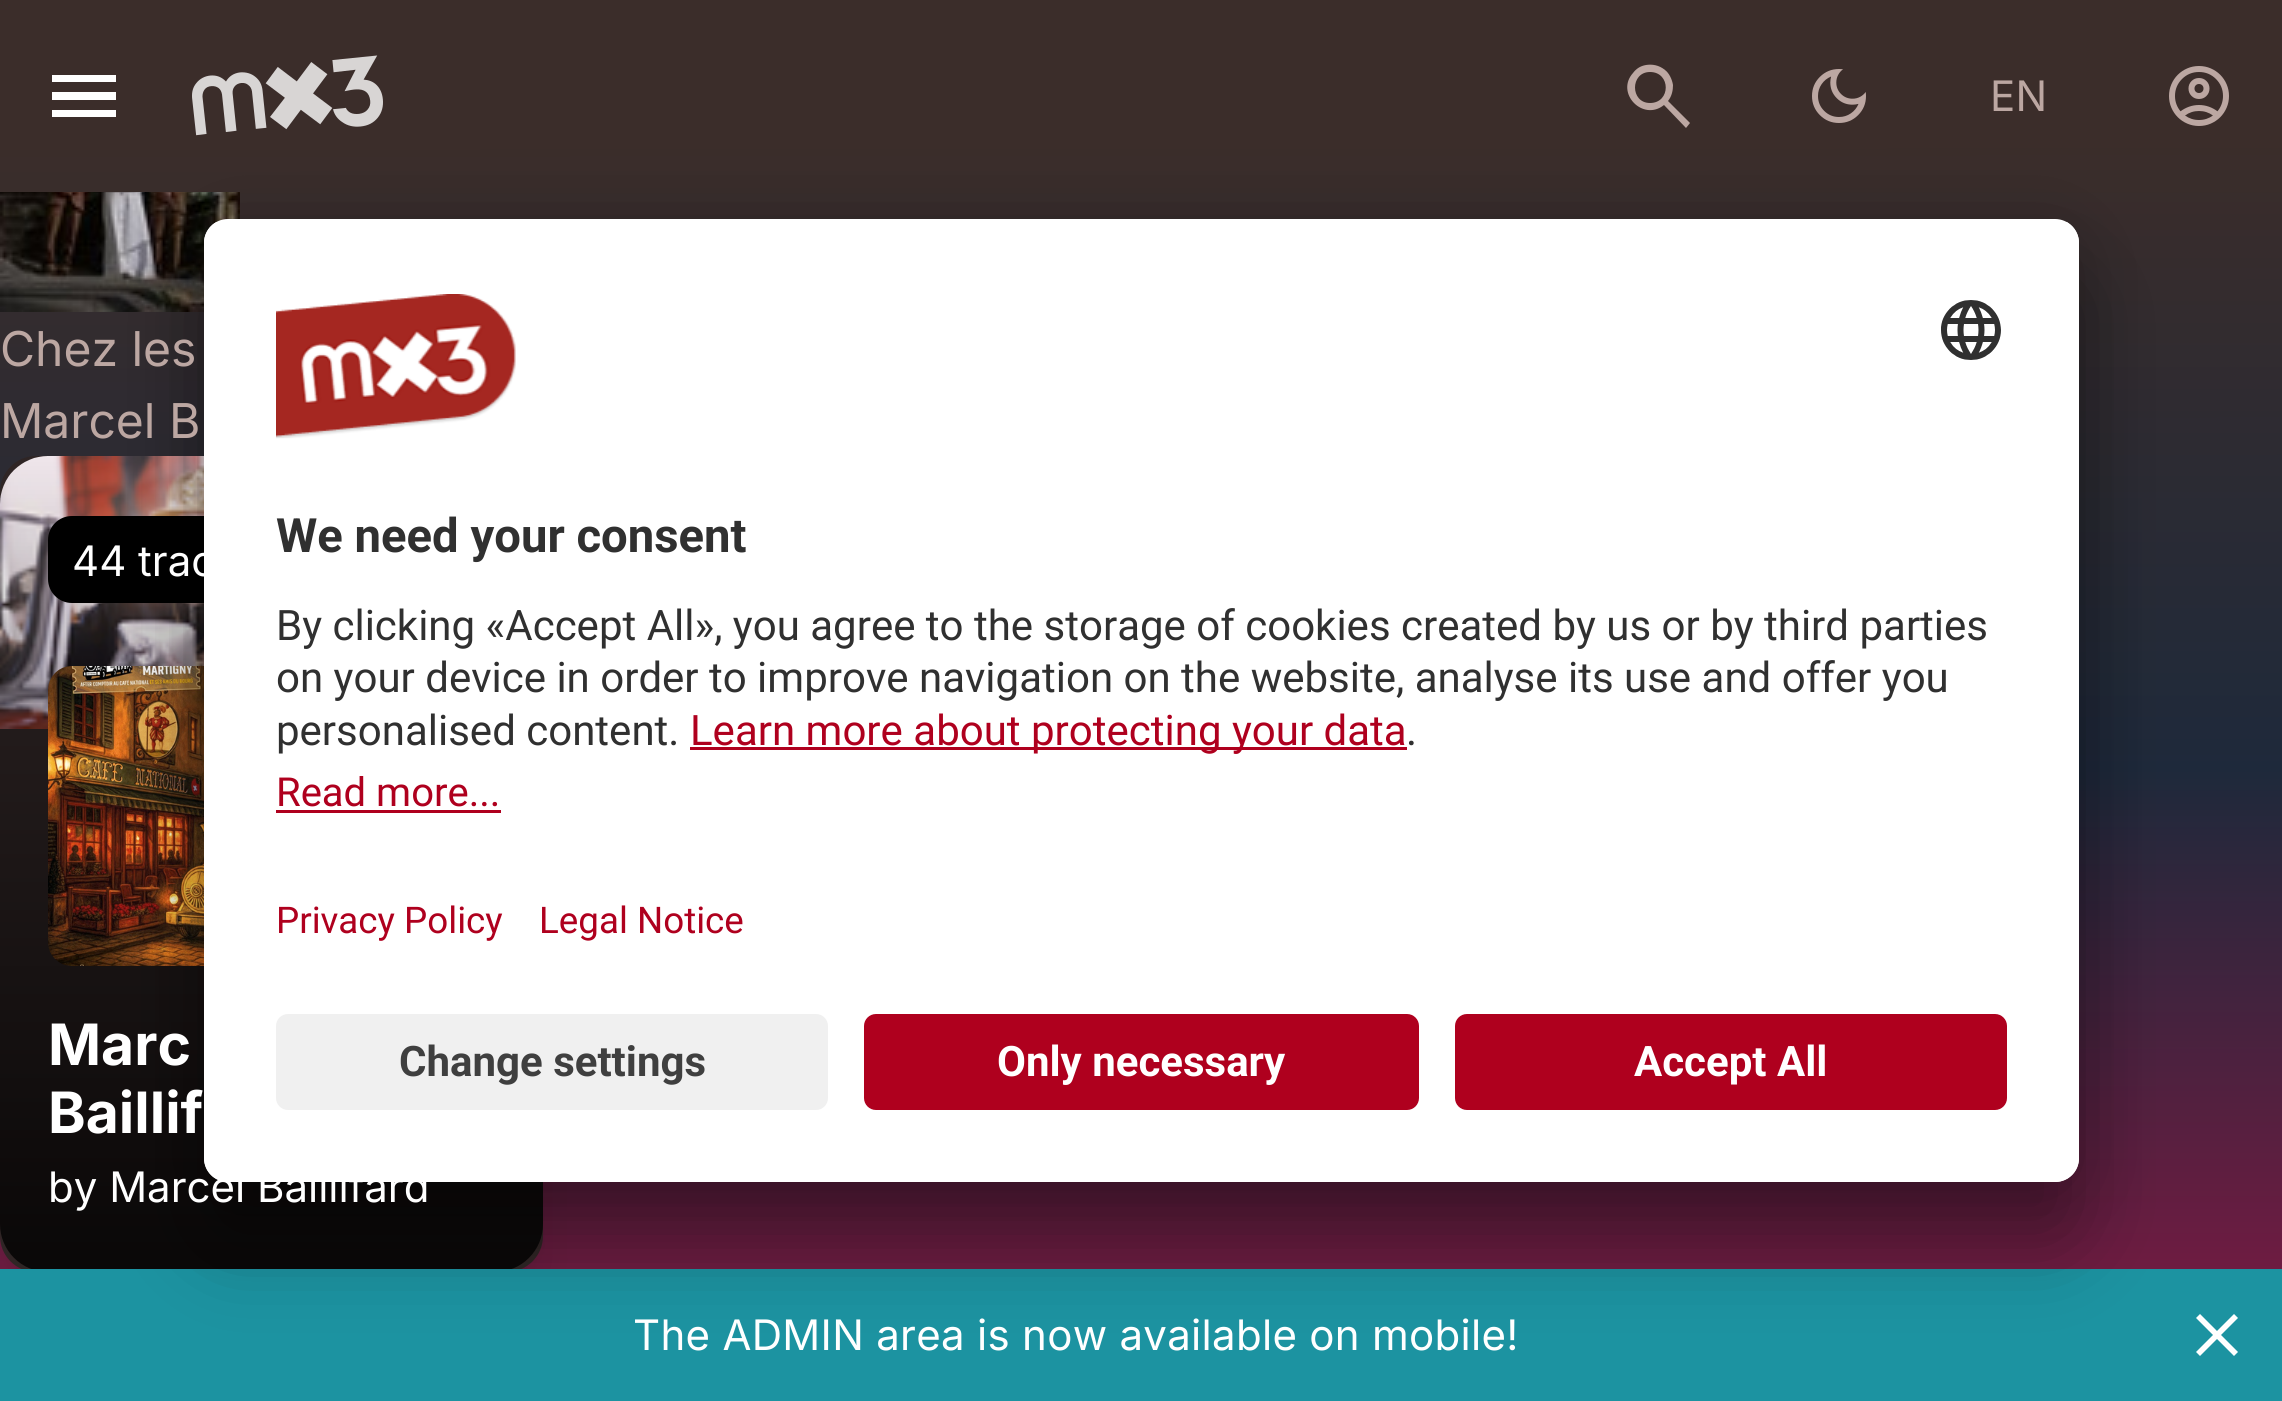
#include <cairo/cairo.h>
#include <math.h>
#include <stddef.h>

static cairo_t *cr;

static void use_color(int r, int g, int b) {
  cairo_set_source_rgb(cr, r / 255.0, g / 255.0, b / 255.0);
}

static void text(double x, double y, const char *s, const char *family, double size, int italic, int bold, int r, int g, int b) {
  cairo_select_font_face(cr, family, italic ? CAIRO_FONT_SLANT_ITALIC : CAIRO_FONT_SLANT_NORMAL,
    bold ? CAIRO_FONT_WEIGHT_BOLD : CAIRO_FONT_WEIGHT_NORMAL);
  cairo_set_font_size(cr, size);
  use_color(r, g, b);
  cairo_move_to(cr, x, y);
  cairo_show_text(cr, s);
}

static void spaced_text(double x, double y, const char *s, double letter, double word) {
  cairo_move_to(cr, x, y);
  while (*s) {
    char ch[5] = {0};
    int n = 0;
    do ch[n++] = *s++; while ((*s & 0xC0) == 0x80);
    cairo_show_text(cr, ch);
    cairo_rel_move_to(cr, letter + word * (*ch == ' '), 0);
  }
}

static void box(double x, double y, double w, double h, int r, int g, int b) {
  use_color(r, g, b);
  cairo_rectangle(cr, x, y, w, h);
  cairo_fill(cr);
}

static void round_rect(double x, double y, double w, double h, double r) {
  cairo_new_sub_path(cr);
  cairo_arc(cr, x + w - r, y + h - r, r, 0, M_PI / 2);
  cairo_arc(cr, x + r, y + h - r, r, M_PI / 2, M_PI);
  cairo_arc(cr, x + r, y + r, r, M_PI, 1.5 * M_PI);
  cairo_arc(cr, x + w - r, y + r, r, 1.5 * M_PI, 2 * M_PI);
  cairo_close_path(cr);
}

static void shadow(double x, double y, double w, double h, double r, double blur, double alpha) {
  cairo_push_group_with_content(cr, CAIRO_CONTENT_ALPHA);
  cairo_set_operator(cr, CAIRO_OPERATOR_SOURCE);
  for (int i = 15; i >= -15 && fmin(w, h) + blur * i / 3 > 0; i -= 2) {
    double e = blur * i / 6;
    cairo_set_source_rgba(cr, 0, 0, 0, alpha * erfc((i - 1) / 8.5) / 2);
    round_rect(x - e, y - e, w + 2 * e, h + 2 * e, fmax(0, fmin(r + e + blur * .6, fmin(w, h) / 2 + e)));
    cairo_fill(cr);
  }
  cairo_pattern_t *soft = cairo_pop_group(cr);
  cairo_mask(cr, soft);
  cairo_pattern_destroy(soft);
}

static void picture(const char *path, double x, double y, double w, double h) {
  cairo_surface_t *image = cairo_image_surface_create_from_png(path);
  cairo_save(cr);
  cairo_set_source_surface(cr, image, x, y);
  cairo_rectangle(cr, x, y, w, h);
  cairo_fill(cr);
  cairo_restore(cr);
  cairo_surface_destroy(image);
}

static void draw(void) {
  cairo_pattern_t *gradient;
  use_color(255, 255, 255);
  cairo_paint(cr);
  gradient = cairo_pattern_create_linear(1141, 0, 1142, 1401);
  cairo_pattern_add_color_stop_rgba(gradient, 0.1, 0.231, 0.176, 0.165, 1);
  cairo_pattern_add_color_stop_rgba(gradient, 0.55, 0.118, 0.161, 0.231, 1);
  cairo_pattern_add_color_stop_rgba(gradient, 1, 0.514, 0.094, 0.263, 1);
  cairo_set_source(cr, gradient);
  cairo_pattern_destroy(gradient);
  cairo_rectangle(cr, 0, 192, 2282, 1077);
  cairo_fill(cr);
  cairo_rectangle(cr, 0, 0, 2282, 192);
  cairo_fill(cr);
  use_color(255, 255, 255);
  cairo_new_path(cr);
  cairo_move_to(cr, 52, 117);
  cairo_line_to(cr, 52, 110);
  cairo_line_to(cr, 116, 110);
  cairo_line_to(cr, 116, 117);
  cairo_close_path(cr);
  cairo_move_to(cr, 52, 100);
  cairo_line_to(cr, 52, 92);
  cairo_line_to(cr, 116, 92);
  cairo_line_to(cr, 116, 100);
  cairo_close_path(cr);
  cairo_move_to(cr, 52, 82);
  cairo_line_to(cr, 52, 75);
  cairo_line_to(cr, 116, 75);
  cairo_line_to(cr, 116, 82);
  cairo_close_path(cr);
  cairo_fill(cr);
  picture("img_01.png", 192, 55, 191, 81);
  use_color(188, 167, 162);
  cairo_new_path(cr);
  cairo_move_to(cr, 1686, 128);
  cairo_line_to(cr, 1664, 105);
  cairo_curve_to(cr, 1643, 122, 1615, 93, 1633, 73);
  cairo_curve_to(cr, 1636, 69, 1640, 66, 1646, 65);
  cairo_curve_to(cr, 1652, 64, 1659, 65, 1665, 70);
  cairo_curve_to(cr, 1669, 73, 1672, 79, 1673, 85);
  cairo_curve_to(cr, 1673, 90, 1672, 96, 1668, 101);
  cairo_line_to(cr, 1690, 123);
  cairo_close_path(cr);
  cairo_move_to(cr, 1650, 103);
  cairo_curve_to(cr, 1671, 103, 1671, 72, 1650, 72);
  cairo_curve_to(cr, 1630, 72, 1630, 103, 1650, 103);
  cairo_close_path(cr);
  cairo_fill(cr);
  picture("img_02.png", 1812, 69, 54, 54);
  picture("img_03.png", 2169, 66, 60, 60);
  picture("img_04.png", 0, 192, 240, 120);
  use_color(0, 0, 0);
  shadow(12, 480, 519, 792, 24, 9, 0.1);
  shadow(9, 495, 525, 798, 27, 22.5, 0.1);
  use_color(47, 37, 37);
  round_rect(0, 456, 543, 816, 36);
  cairo_fill(cr);
  picture("img_05.png", 0, 456, 204, 273);
  gradient = cairo_pattern_create_linear(271, 456, 272, 1272);
  cairo_pattern_add_color_stop_rgba(gradient, 0, 0, 0, 0, 0);
  cairo_pattern_add_color_stop_rgba(gradient, 1, 0, 0, 0, 0.8);
  cairo_set_source(cr, gradient);
  cairo_pattern_destroy(gradient);
  round_rect(0, 456, 543, 816, 48);
  cairo_fill(cr);
  use_color(0, 0, 0);
  round_rect(48, 516, 237, 87, 24);
  cairo_fill(cr);
  picture("img_06.png", 48, 666, 156, 300);
  box(0, 1269, 2282, 132, 28, 147, 161);
  use_color(255, 255, 255);
  cairo_new_path(cr);
  cairo_move_to(cr, 2200, 1356);
  cairo_line_to(cr, 2196, 1352);
  cairo_line_to(cr, 2213, 1335);
  cairo_line_to(cr, 2196, 1318);
  cairo_line_to(cr, 2200, 1314);
  cairo_line_to(cr, 2217, 1331);
  cairo_line_to(cr, 2234, 1314);
  cairo_line_to(cr, 2238, 1318);
  cairo_line_to(cr, 2221, 1335);
  cairo_line_to(cr, 2238, 1352);
  cairo_line_to(cr, 2234, 1356);
  cairo_line_to(cr, 2217, 1339);
  cairo_close_path(cr);
  cairo_fill(cr);
  use_color(0, 0, 0);
  shadow(204, 279, 1875, 963, 24, 42, 0.3);
  shadow(204, 234, 1875, 963, 24, 39, 0.22);
  use_color(255, 255, 255);
  round_rect(204, 219, 1875, 963, 24);
  cairo_fill(cr);
  cairo_save(cr);
  round_rect(204, 219, 1875, 963, 24);
  cairo_clip(cr);
  cairo_new_path(cr);
  cairo_move_to(cr, 228, 219);
  cairo_line_to(cr, 2055, 219);
  cairo_curve_to(cr, 2068.5, 219, 2079, 229.5, 2079, 243);
  cairo_line_to(cr, 2079, 990);
  cairo_line_to(cr, 204, 990);
  cairo_line_to(cr, 204, 243);
  cairo_curve_to(cr, 204, 229.5, 214.5, 219, 228, 219);
  cairo_close_path(cr);
  cairo_clip(cr);
  box(204, 222, 1875, 768, 255, 255, 255);
  cairo_restore(cr);
  picture("img_07.png", 276, 294, 240, 145);
  picture("img_08.png", 1941, 300, 60, 60);
  box(690, 747, 717, 3, 175, 0, 30);
  box(276, 810, 225, 3, 175, 0, 30);
  use_color(255, 255, 255);
  cairo_new_path(cr);
  cairo_move_to(cr, 204, 990);
  cairo_line_to(cr, 2079, 990);
  cairo_line_to(cr, 2079, 1158);
  cairo_curve_to(cr, 2079, 1171.5, 2068.5, 1182, 2055, 1182);
  cairo_line_to(cr, 228, 1182);
  cairo_curve_to(cr, 214.5, 1182, 204, 1171.5, 204, 1158);
  cairo_close_path(cr);
  cairo_fill(cr);
  use_color(240, 240, 240);
  round_rect(276, 1014, 552, 96, 12);
  cairo_fill(cr);
  use_color(175, 0, 30);
  round_rect(864, 1014, 555, 96, 12);
  cairo_fill(cr);
  round_rect(1455, 1014, 552, 96, 12);
  cairo_fill(cr);
  cairo_select_font_face(cr, "Inter", CAIRO_FONT_SLANT_NORMAL, CAIRO_FONT_WEIGHT_NORMAL);
  cairo_set_font_size(cr, 42);
  use_color(188, 167, 162);
  spaced_text(1990, 111, "EN", 0.3, 0);
  text(0, 366, "Chez les", "Inter", 48, 0, 0, 188, 167, 162);
  text(0, 438, "Marcel B", "Inter", 48, 0, 0, 188, 167, 162);
  text(72, 576, "44 trac", "Inter", 42, 0, 0, 255, 255, 255);
  text(48, 1065, "Marc", "Inter", 57, 0, 1, 255, 255, 255);
  text(48, 1133, "Baillif", "Inter", 57, 0, 1, 255, 255, 255);
  text(48, 1202, "by Marcel Baillifard", "Inter", 42, 0, 0, 255, 255, 255);
  text(276, 552, "We need your consent", "Roboto", 47.25, 0, 1, 48, 48, 48);
  text(276, 640, "By clicking «Accept All», you agree to the storage of cookies created by us or by third parties", "Roboto", 42, 0, 0, 48, 48, 48);
  text(276, 692, "on your device in order to improve navigation on the website, analyse its use and offer you", "Roboto", 42, 0, 0, 48, 48, 48);
  text(276, 745, "personalised content.", "Roboto", 42, 0, 0, 48, 48, 48);
  text(690, 745, "Learn more about protecting your data", "Roboto", 42, 0, 0, 175, 0, 30);
  text(1406, 745, ".", "Roboto", 42, 0, 0, 48, 48, 48);
  text(276, 806, "Read more...", "Roboto", 40, 0, 0, 175, 0, 30);
  text(276, 933, "Privacy Policy", "Roboto", 36.75, 0, 0, 175, 0, 30);
  text(539, 933, "Legal Notice", "Roboto", 36.75, 0, 0, 175, 0, 30);
  text(399, 1076, "Change settings", "Roboto", 42, 0, 1, 63, 63, 63);
  text(997, 1076, "Only necessary", "Roboto", 42, 0, 1, 255, 255, 255);
  text(1634, 1076, "Accept All", "Roboto", 42, 0, 1, 255, 255, 255);
  cairo_select_font_face(cr, "Inter", CAIRO_FONT_SLANT_NORMAL, CAIRO_FONT_WEIGHT_NORMAL);
  spaced_text(633, 1350, "The ADMIN area is now available on mobile!", 0.3, 0);
}

int main(void) {
  cairo_surface_t *surface = cairo_image_surface_create(CAIRO_FORMAT_RGB24, 2282, 1401);
  cr = cairo_create(surface);
  cairo_font_options_t *options = cairo_font_options_create();
  cairo_font_options_set_hint_metrics(options, CAIRO_HINT_METRICS_OFF);
  cairo_font_options_set_hint_style(options, CAIRO_HINT_STYLE_NONE);
  cairo_set_font_options(cr, options);
  cairo_set_miter_limit(cr, 4);
  draw();
  cairo_surface_write_to_png(surface, "out.png");
  cairo_font_options_destroy(options);
  cairo_destroy(cr);
  cairo_surface_destroy(surface);
  return 0;
}
